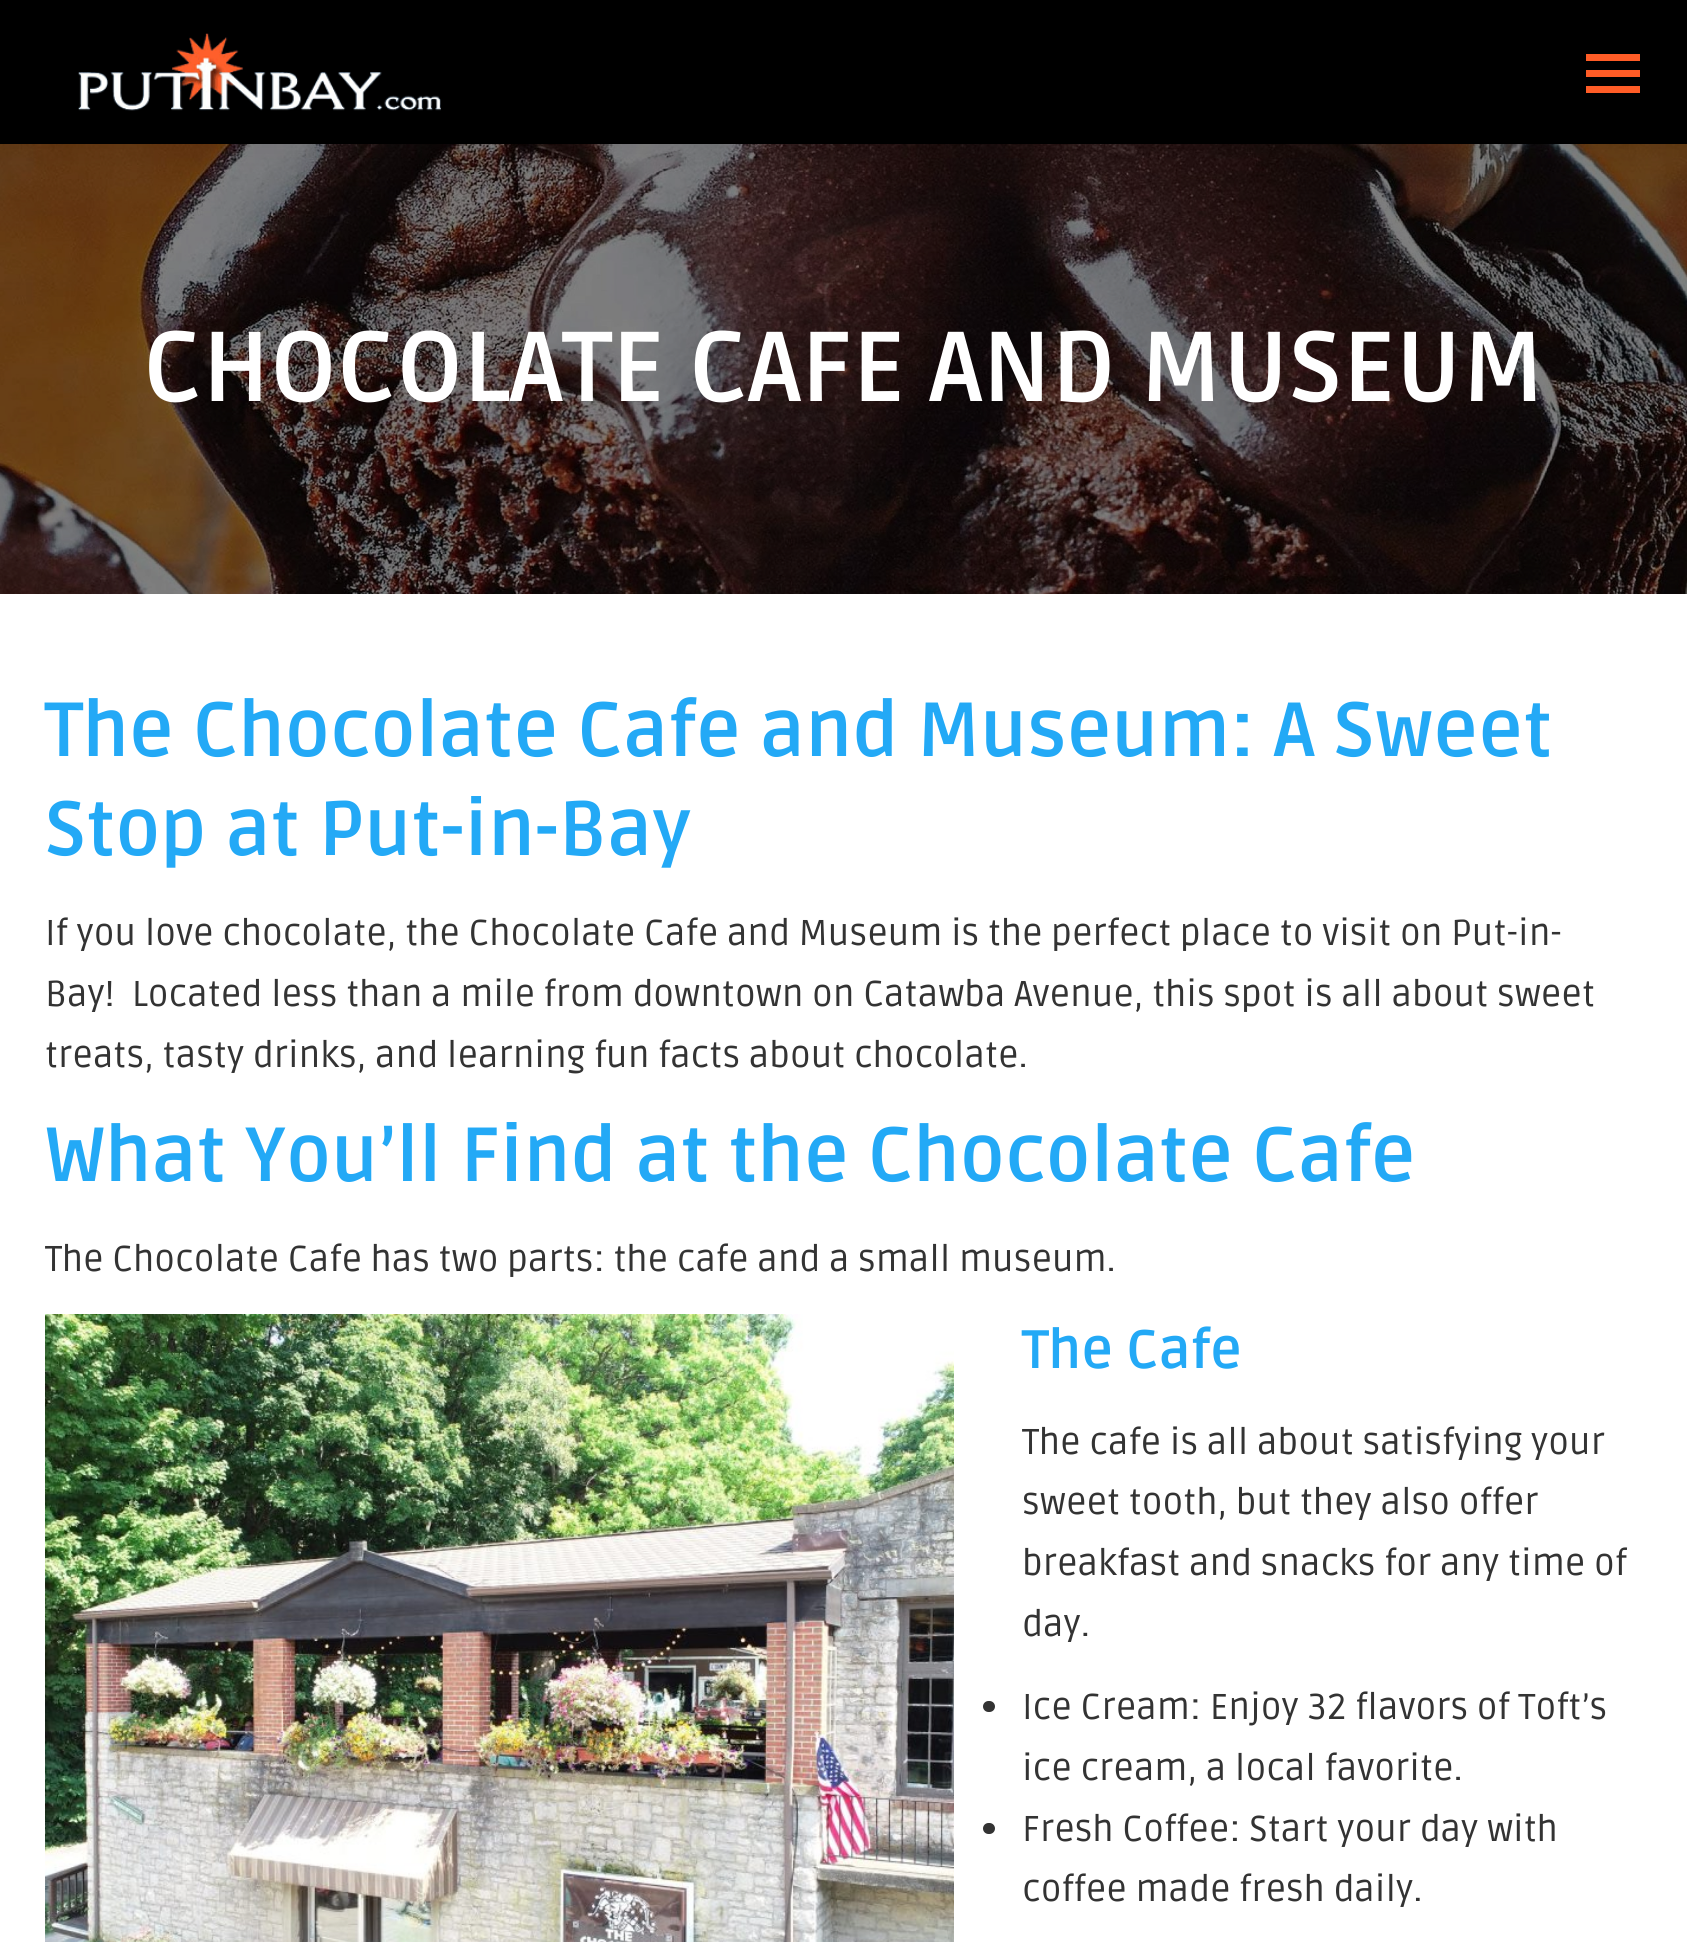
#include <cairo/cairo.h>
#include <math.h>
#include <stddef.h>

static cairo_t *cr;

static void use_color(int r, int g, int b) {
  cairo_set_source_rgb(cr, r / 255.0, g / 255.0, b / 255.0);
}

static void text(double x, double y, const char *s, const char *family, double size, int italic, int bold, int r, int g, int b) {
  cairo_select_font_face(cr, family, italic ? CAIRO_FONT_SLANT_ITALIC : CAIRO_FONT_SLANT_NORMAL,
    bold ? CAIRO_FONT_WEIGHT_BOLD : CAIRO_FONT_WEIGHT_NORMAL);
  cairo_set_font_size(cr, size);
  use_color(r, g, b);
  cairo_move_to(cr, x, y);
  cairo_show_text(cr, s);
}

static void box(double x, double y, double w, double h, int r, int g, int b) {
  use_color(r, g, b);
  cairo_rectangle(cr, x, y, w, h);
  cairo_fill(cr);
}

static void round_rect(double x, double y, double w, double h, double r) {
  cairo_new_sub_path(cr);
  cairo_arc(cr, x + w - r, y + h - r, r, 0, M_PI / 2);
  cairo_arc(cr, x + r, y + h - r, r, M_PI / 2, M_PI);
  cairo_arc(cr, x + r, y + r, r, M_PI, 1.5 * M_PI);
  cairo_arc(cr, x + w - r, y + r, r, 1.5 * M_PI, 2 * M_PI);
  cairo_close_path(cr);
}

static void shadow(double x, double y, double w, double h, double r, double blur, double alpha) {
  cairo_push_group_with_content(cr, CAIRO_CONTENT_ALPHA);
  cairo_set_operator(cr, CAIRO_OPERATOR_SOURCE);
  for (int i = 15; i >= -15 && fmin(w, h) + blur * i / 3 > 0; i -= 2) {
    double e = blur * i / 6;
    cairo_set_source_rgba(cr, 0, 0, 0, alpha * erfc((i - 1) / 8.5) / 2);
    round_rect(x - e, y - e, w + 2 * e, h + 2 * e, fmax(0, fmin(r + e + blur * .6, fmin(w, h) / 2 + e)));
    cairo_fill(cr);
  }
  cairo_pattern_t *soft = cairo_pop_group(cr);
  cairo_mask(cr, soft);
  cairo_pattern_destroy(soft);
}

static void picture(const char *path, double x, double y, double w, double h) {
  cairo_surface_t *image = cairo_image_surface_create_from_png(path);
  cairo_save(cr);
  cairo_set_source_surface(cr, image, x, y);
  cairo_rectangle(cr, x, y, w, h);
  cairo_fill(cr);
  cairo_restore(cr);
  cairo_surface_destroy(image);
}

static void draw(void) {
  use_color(255, 255, 255);
  cairo_paint(cr);
  picture("img_02.png", 0, 144, 1687, 450);
  use_color(0, 0, 0);
  shadow(-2, -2, 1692, 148, 0, 17, 0.07);
  box(0, 0, 1687, 144, 0, 0, 0);
  picture("img_01.png", 78, 33, 363, 78);
  box(1586, 54, 54, 7, 255, 92, 38);
  box(1586, 70, 54, 7, 255, 92, 38);
  box(1586, 86, 54, 7, 255, 92, 38);
  picture("img_03.png", 45, 1314, 909, 628);
  use_color(51, 51, 51);
  round_rect(983, 1701, 12, 11, 5.5);
  cairo_fill(cr);
  round_rect(983, 1823, 12, 11, 5.5);
  cairo_fill(cr);
  text(143, 401, "CHOCOLATE CAFE AND MUSEUM", "Ruda", 99, 0, 1, 255, 255, 255);
  text(45, 756, "The Chocolate Cafe and Museum: A Sweet", "Ruda", 76.5, 0, 1, 35, 169, 246);
  text(45, 855, "Stop at Put-in-Bay", "Ruda", 76.5, 0, 1, 35, 169, 246);
  text(45, 945, "If you love chocolate, the Chocolate Cafe and Museum is the perfect place to visit on Put-in-", "Ruda", 36, 0, 0, 51, 51, 51);
  text(45, 1006, "Bay!  Located less than a mile from downtown on Catawba Avenue, this spot is all about sweet", "Ruda", 36, 0, 0, 51, 51, 51);
  text(45, 1067, "treats, tasty drinks, and learning fun facts about chocolate.", "Ruda", 36, 0, 0, 51, 51, 51);
  text(45, 1181, "What You’ll Find at the Chocolate Cafe", "Ruda", 76.5, 0, 1, 35, 169, 246);
  text(45, 1271, "The Chocolate Cafe has two parts: the cafe and a small museum.", "Ruda", 36, 0, 0, 51, 51, 51);
  text(1022, 1368, "The Cafe", "Ruda", 54, 0, 1, 35, 169, 246);
  text(1022, 1454, "The cafe is all about satisfying your", "Ruda", 36, 0, 0, 51, 51, 51);
  text(1022, 1514, "sweet tooth, but they also offer", "Ruda", 36, 0, 0, 51, 51, 51);
  text(1022, 1575, "breakfast and snacks for any time of", "Ruda", 36, 0, 0, 51, 51, 51);
  text(1022, 1636, "day.", "Ruda", 36, 0, 0, 51, 51, 51);
  text(1022, 1719, "Ice Cream: Enjoy 32 flavors of Toft’s", "Ruda", 36, 0, 0, 51, 51, 51);
  text(1022, 1780, "ice cream, a local favorite.", "Ruda", 36, 0, 0, 51, 51, 51);
  text(1022, 1841, "Fresh Coffee: Start your day with", "Ruda", 36, 0, 0, 51, 51, 51);
  text(1022, 1901, "coffee made fresh daily.", "Ruda", 36, 0, 0, 51, 51, 51);
}

int main(void) {
  cairo_surface_t *surface = cairo_image_surface_create(CAIRO_FORMAT_RGB24, 1687, 1942);
  cr = cairo_create(surface);
  cairo_font_options_t *options = cairo_font_options_create();
  cairo_font_options_set_hint_metrics(options, CAIRO_HINT_METRICS_OFF);
  cairo_font_options_set_hint_style(options, CAIRO_HINT_STYLE_NONE);
  cairo_set_font_options(cr, options);
  cairo_set_miter_limit(cr, 4);
  draw();
  cairo_surface_write_to_png(surface, "out.png");
  cairo_font_options_destroy(options);
  cairo_destroy(cr);
  cairo_surface_destroy(surface);
  return 0;
}
